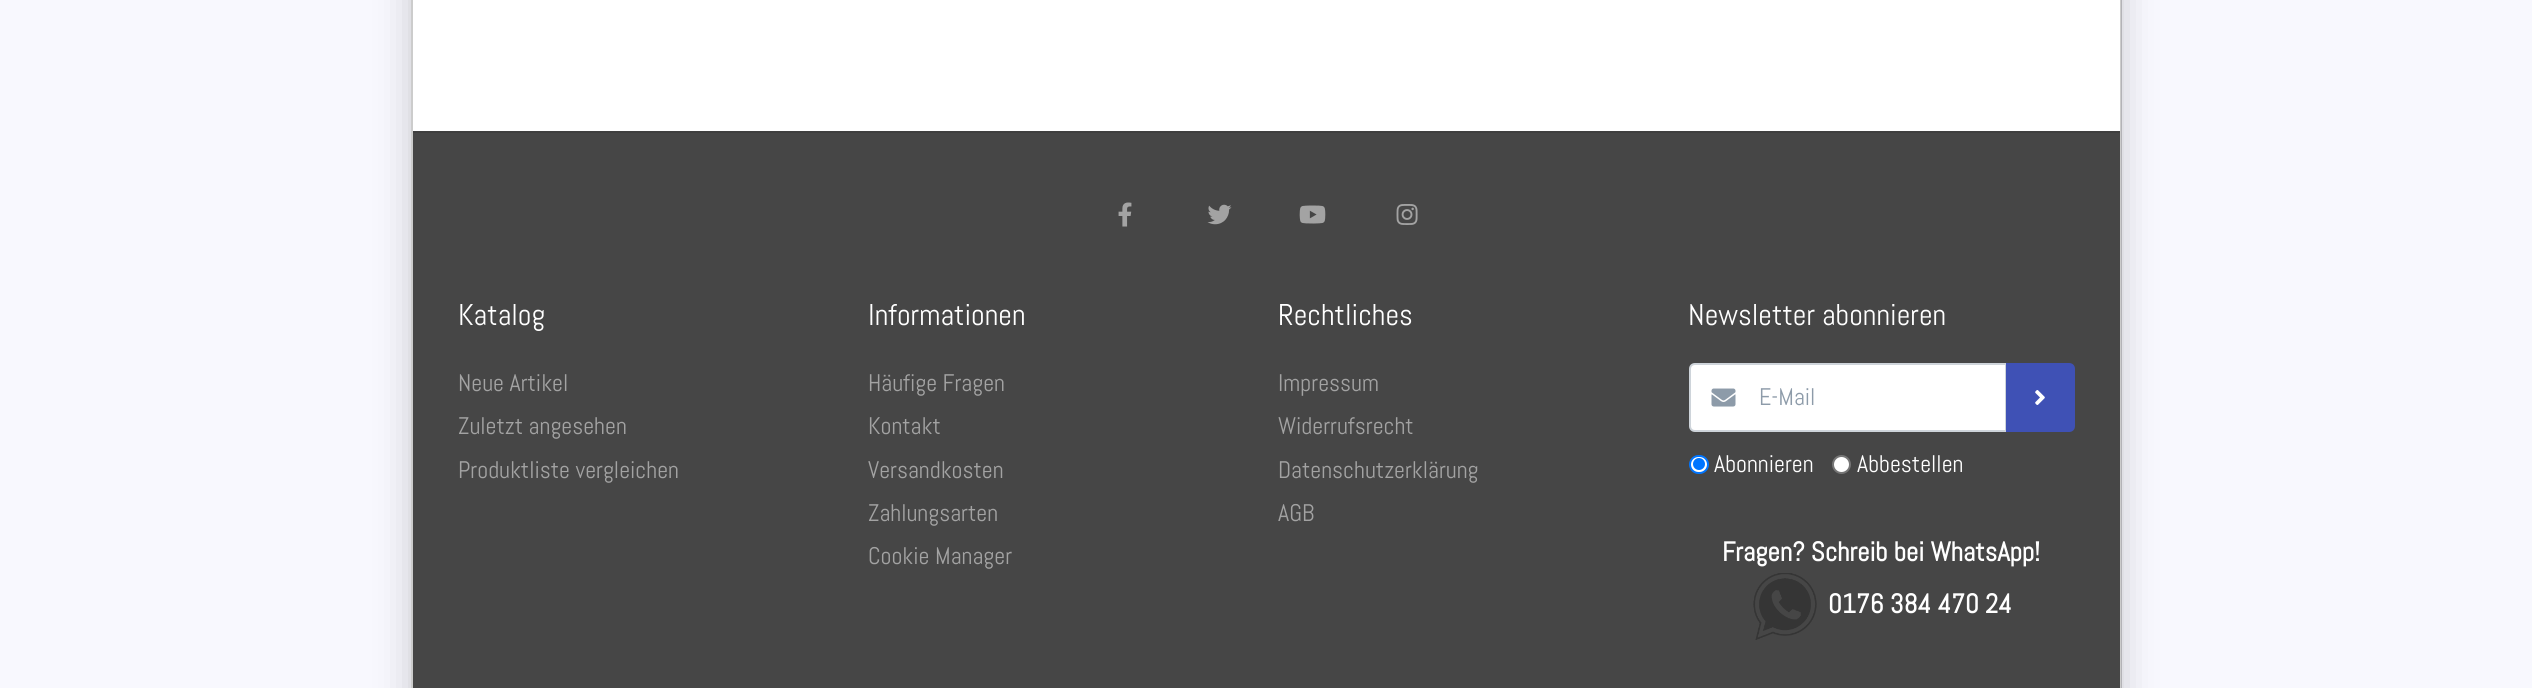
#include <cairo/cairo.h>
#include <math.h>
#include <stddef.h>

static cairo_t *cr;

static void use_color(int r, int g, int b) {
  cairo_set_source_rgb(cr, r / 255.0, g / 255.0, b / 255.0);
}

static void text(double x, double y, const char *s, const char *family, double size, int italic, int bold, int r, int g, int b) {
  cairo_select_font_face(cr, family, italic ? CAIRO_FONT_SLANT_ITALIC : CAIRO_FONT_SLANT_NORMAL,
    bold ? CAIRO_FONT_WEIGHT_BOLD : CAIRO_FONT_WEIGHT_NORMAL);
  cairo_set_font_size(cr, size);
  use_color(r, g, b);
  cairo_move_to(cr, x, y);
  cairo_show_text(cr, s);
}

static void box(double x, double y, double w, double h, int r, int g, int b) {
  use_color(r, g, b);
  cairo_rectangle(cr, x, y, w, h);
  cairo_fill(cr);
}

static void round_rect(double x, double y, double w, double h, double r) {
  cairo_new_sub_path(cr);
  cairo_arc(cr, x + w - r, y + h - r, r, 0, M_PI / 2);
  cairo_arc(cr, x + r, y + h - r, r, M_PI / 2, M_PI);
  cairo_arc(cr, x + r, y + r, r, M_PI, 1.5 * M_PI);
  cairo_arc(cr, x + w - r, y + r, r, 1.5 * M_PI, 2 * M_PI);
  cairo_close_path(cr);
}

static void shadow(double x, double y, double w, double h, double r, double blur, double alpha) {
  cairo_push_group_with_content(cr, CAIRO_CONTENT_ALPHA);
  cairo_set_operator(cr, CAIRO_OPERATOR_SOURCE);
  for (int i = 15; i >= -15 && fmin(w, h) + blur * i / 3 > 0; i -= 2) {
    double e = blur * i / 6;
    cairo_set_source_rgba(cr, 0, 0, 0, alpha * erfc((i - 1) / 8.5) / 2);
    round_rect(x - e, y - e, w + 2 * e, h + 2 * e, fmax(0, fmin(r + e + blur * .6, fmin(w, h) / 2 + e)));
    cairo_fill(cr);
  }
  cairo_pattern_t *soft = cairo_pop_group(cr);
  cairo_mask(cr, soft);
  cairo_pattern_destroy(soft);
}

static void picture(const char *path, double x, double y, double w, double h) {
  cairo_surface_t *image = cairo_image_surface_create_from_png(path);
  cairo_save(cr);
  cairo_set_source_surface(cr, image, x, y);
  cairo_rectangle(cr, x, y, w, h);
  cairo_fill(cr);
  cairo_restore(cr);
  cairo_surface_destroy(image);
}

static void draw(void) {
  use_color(248, 248, 254);
  cairo_paint(cr);
  use_color(0, 0, 0);
  shadow(411, -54, 1710, 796, 0, 18, 0.2);
  box(413, 0, 1708, 688, 255, 255, 255);
  cairo_set_source_rgba(cr, 0, 0, 0, 0.2);
  cairo_rectangle(cr, 2120, 0, 2, 688);
  cairo_fill(cr);
  box(411, 0, 2, 688, 204, 204, 204);
  box(413, 133, 1707, 555, 70, 70, 70);
  box(413, 131, 1707, 2, 63, 63, 63);
  picture("img_01.png", 1118, 202, 14, 25);
  picture("img_02.png", 1207, 204, 25, 21);
  picture("img_03.png", 1299, 205, 27, 19);
  picture("img_04.png", 1396, 204, 22, 21);
  use_color(255, 255, 255);
  cairo_new_path(cr);
  cairo_move_to(cr, 1695, 364);
  cairo_line_to(cr, 2006, 364);
  cairo_line_to(cr, 2006, 431);
  cairo_line_to(cr, 1695, 431);
  cairo_curve_to(cr, 1692, 431, 1690, 429, 1690, 426);
  cairo_line_to(cr, 1690, 369);
  cairo_curve_to(cr, 1690, 366, 1692, 364, 1695, 364);
  cairo_close_path(cr);
  cairo_fill_preserve(cr);
  use_color(206, 212, 218);
  cairo_stroke(cr);
  picture("img_05.png", 1711, 388, 25, 19);
  use_color(63, 81, 181);
  cairo_new_path(cr);
  cairo_move_to(cr, 2007, 364);
  cairo_line_to(cr, 2069, 364);
  cairo_curve_to(cr, 2072, 364, 2074, 366, 2074, 369);
  cairo_line_to(cr, 2074, 426);
  cairo_curve_to(cr, 2074, 429, 2072, 431, 2069, 431);
  cairo_line_to(cr, 2007, 431);
  cairo_close_path(cr);
  cairo_fill_preserve(cr);
  cairo_stroke(cr);
  picture("img_06.png", 2035, 390, 10, 15);
  use_color(255, 255, 255);
  round_rect(1690, 456, 18, 17, 8.5);
  cairo_fill_preserve(cr);
  use_color(0, 117, 255);
  cairo_stroke(cr);
  cairo_arc(cr, 1699, 464, 6, 0, 2 * M_PI);
  cairo_fill(cr);
  use_color(255, 255, 255);
  cairo_arc(cr, 1841.5, 464.5, 8.5, 0, 2 * M_PI);
  cairo_fill_preserve(cr);
  use_color(118, 118, 118);
  cairo_stroke(cr);
  picture("img_07.png", 1753, 573, 64, 67);
  text(458, 325, "Katalog", "Abel", 30, 0, 0, 255, 255, 255);
  text(458, 391, "Neue Artikel", "Abel", 24, 0, 0, 163, 163, 163);
  text(458, 434, "Zuletzt angesehen", "Abel", 24, 0, 0, 163, 163, 163);
  text(458, 478, "Produktliste vergleichen", "Abel", 24, 0, 0, 163, 163, 163);
  text(868, 325, "Informationen", "Abel", 30, 0, 0, 255, 255, 255);
  text(868, 391, "Häufige Fragen", "Abel", 24, 0, 0, 163, 163, 163);
  text(868, 434, "Kontakt", "Abel", 24, 0, 0, 163, 163, 163);
  text(868, 478, "Versandkosten", "Abel", 24, 0, 0, 163, 163, 163);
  text(868, 521, "Zahlungsarten", "Abel", 24, 0, 0, 163, 163, 163);
  text(868, 564, "Cookie Manager", "Abel", 24, 0, 0, 163, 163, 163);
  text(1278, 325, "Rechtliches", "Abel", 30, 0, 0, 255, 255, 255);
  text(1278, 391, "Impressum", "Abel", 24, 0, 0, 163, 163, 163);
  text(1278, 434, "Widerrufsrecht", "Abel", 24, 0, 0, 163, 163, 163);
  text(1278, 478, "Datenschutzerklärung", "Abel", 24, 0, 0, 163, 163, 163);
  text(1278, 521, "AGB", "Abel", 24, 0, 0, 163, 163, 163);
  text(1688, 325, "Newsletter abonnieren", "Abel", 30, 0, 0, 255, 255, 255);
  text(1759, 405, "E-Mail", "Abel", 24, 0, 0, 141, 155, 169);
  text(1714, 472, "Abonnieren", "Abel", 24, 0, 0, 255, 255, 255);
  text(1857, 472, "Abbestellen", "Abel", 24, 0, 0, 255, 255, 255);
  text(1722, 561, "Fragen? Schreib bei WhatsApp!", "Abel", 27, 0, 1, 255, 255, 255);
  text(1828, 613, "0176 384 470 24", "Abel", 27, 0, 1, 255, 255, 255);
}

int main(void) {
  cairo_surface_t *surface = cairo_image_surface_create(CAIRO_FORMAT_RGB24, 2532, 688);
  cr = cairo_create(surface);
  cairo_font_options_t *options = cairo_font_options_create();
  cairo_font_options_set_hint_metrics(options, CAIRO_HINT_METRICS_OFF);
  cairo_font_options_set_hint_style(options, CAIRO_HINT_STYLE_NONE);
  cairo_set_font_options(cr, options);
  cairo_set_miter_limit(cr, 4);
  draw();
  cairo_surface_write_to_png(surface, "out.png");
  cairo_font_options_destroy(options);
  cairo_destroy(cr);
  cairo_surface_destroy(surface);
  return 0;
}
